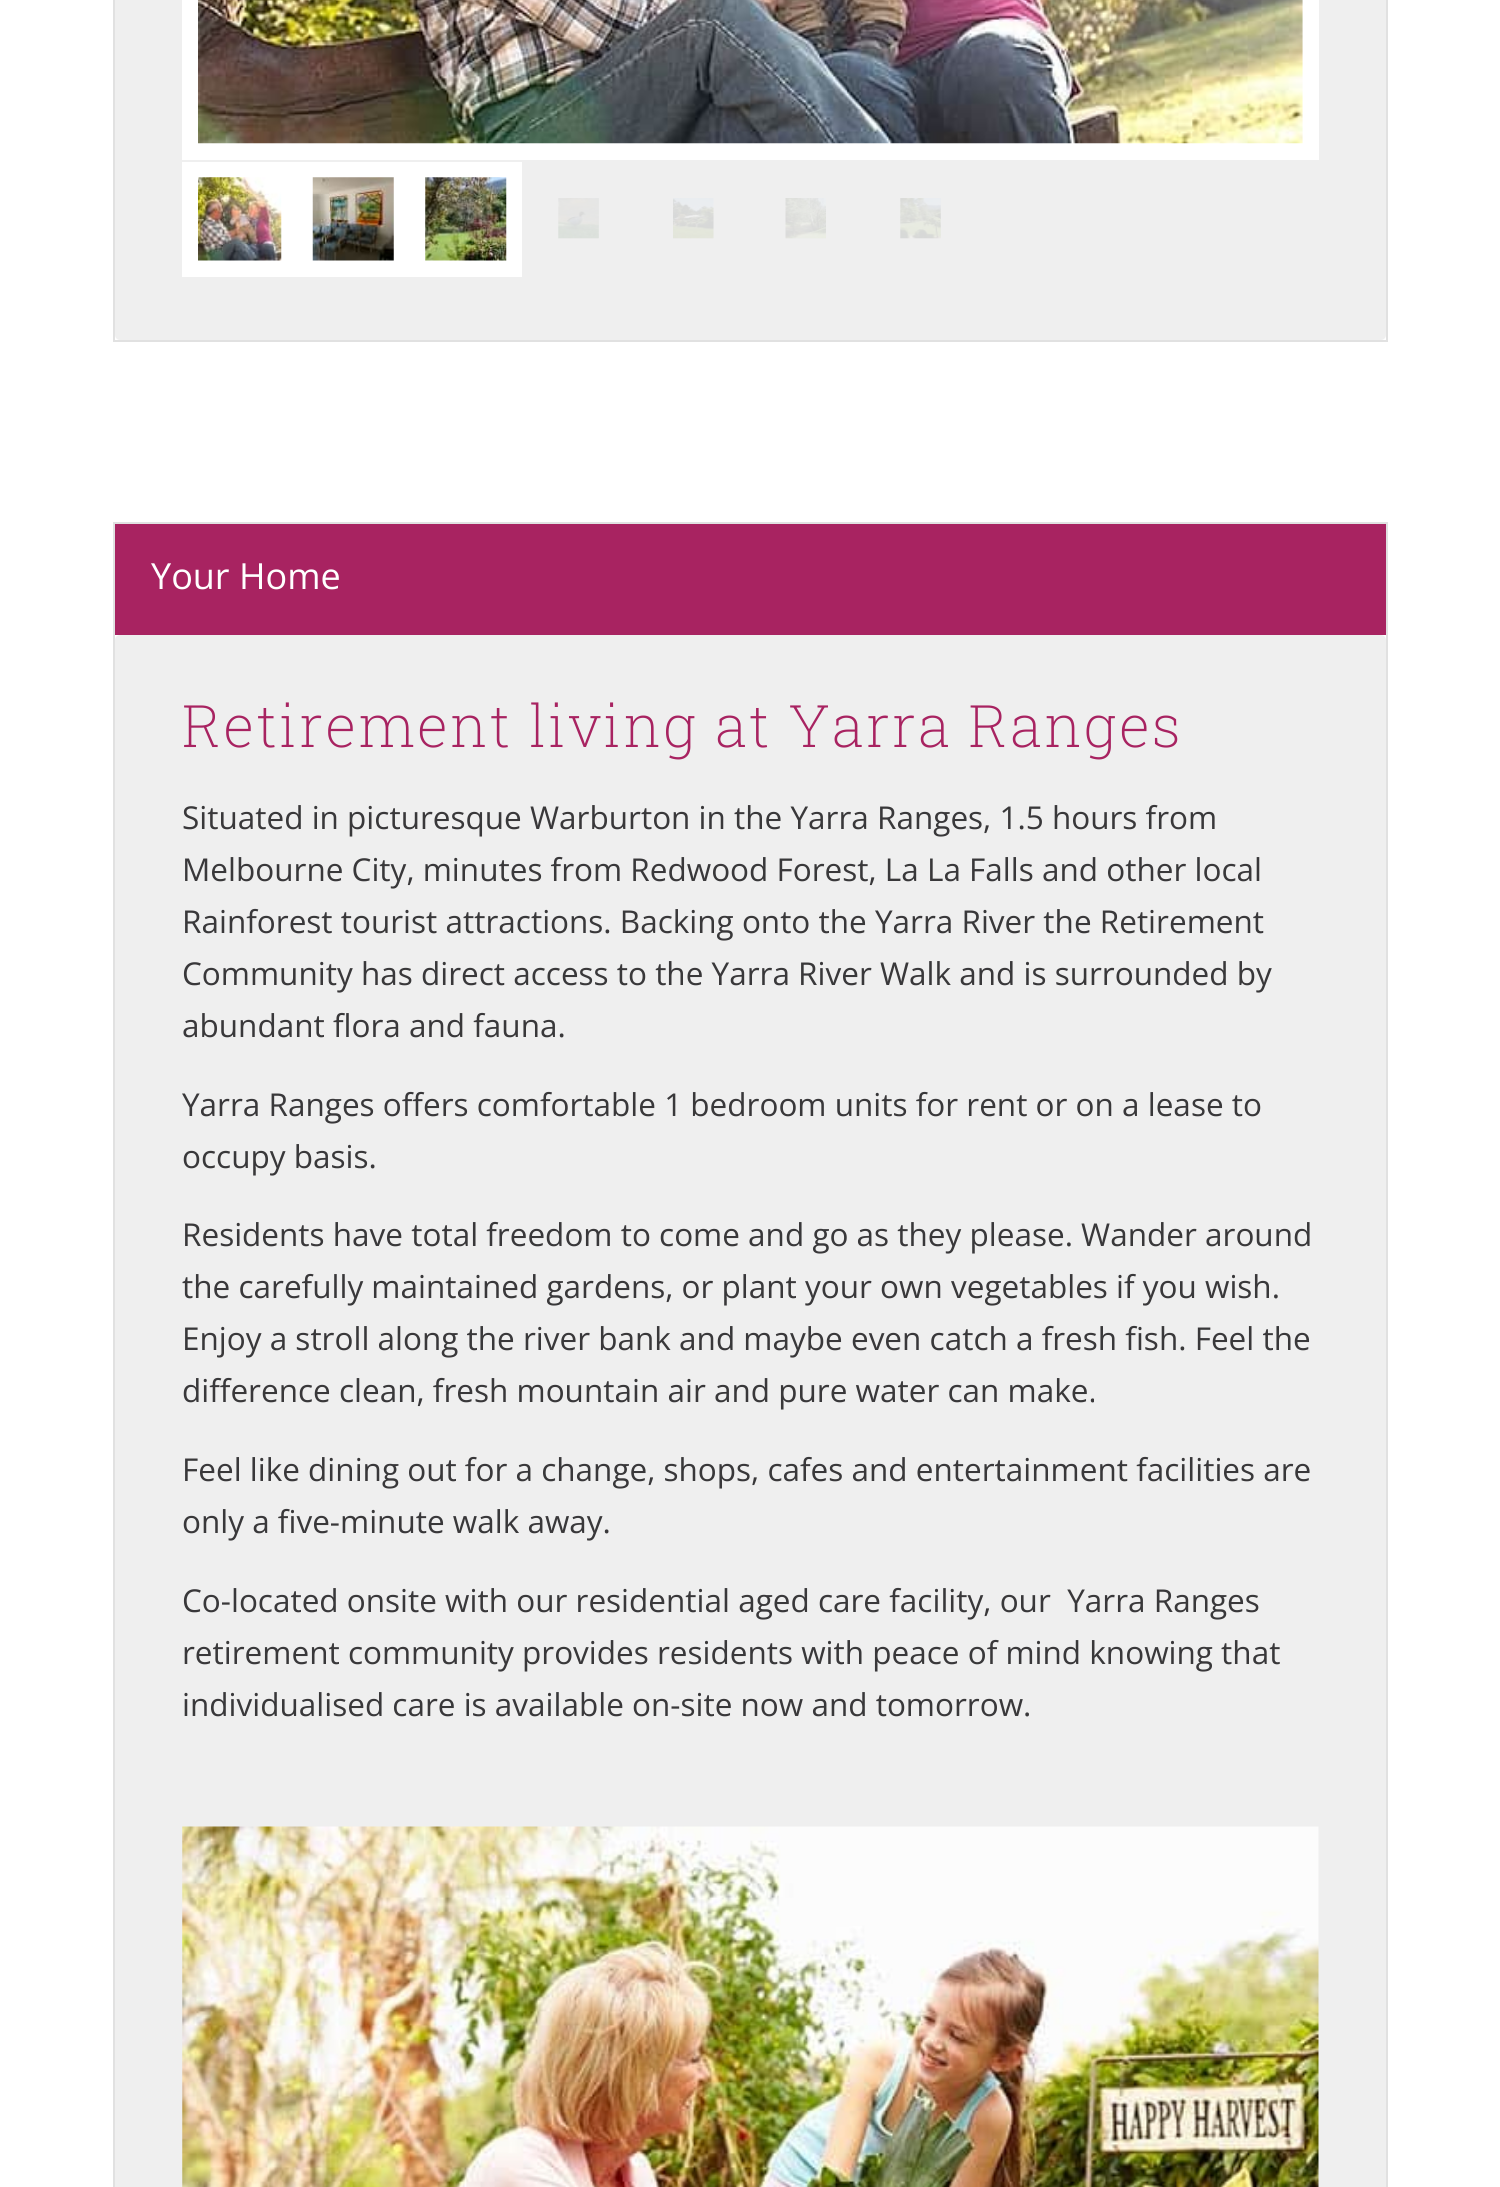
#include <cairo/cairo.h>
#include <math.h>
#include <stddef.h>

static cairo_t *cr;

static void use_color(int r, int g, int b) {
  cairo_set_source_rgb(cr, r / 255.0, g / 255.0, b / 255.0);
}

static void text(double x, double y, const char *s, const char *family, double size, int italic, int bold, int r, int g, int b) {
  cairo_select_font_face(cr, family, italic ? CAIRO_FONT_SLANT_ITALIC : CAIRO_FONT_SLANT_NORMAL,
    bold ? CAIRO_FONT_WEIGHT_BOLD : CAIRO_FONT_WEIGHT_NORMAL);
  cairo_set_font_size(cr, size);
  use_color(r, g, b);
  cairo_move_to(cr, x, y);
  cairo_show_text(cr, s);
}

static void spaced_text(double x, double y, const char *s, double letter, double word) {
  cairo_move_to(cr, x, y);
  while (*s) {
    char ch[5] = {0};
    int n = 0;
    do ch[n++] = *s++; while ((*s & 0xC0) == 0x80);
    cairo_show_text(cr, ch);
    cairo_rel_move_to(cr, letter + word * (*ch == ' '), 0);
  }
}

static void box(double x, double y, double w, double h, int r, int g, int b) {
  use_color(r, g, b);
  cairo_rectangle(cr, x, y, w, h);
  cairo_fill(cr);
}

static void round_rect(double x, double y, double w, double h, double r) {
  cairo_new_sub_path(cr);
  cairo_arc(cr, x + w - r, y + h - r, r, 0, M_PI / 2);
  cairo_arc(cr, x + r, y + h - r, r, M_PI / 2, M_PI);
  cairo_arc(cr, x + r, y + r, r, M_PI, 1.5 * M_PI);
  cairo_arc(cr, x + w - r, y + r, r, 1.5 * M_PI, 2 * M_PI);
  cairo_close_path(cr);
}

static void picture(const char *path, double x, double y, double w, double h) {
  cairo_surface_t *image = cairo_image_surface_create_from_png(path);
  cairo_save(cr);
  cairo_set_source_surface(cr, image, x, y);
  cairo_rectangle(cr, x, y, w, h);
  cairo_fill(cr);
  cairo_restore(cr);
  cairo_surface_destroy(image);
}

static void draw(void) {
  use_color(255, 255, 255);
  cairo_paint(cr);
  box(1386, 0, 2, 342, 225, 225, 225);
  box(113, 340, 1275, 2, 225, 225, 225);
  box(113, 0, 2, 342, 225, 225, 225);
  use_color(239, 239, 239);
  round_rect(115, -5, 1271, 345, 5);
  cairo_fill(cr);
  box(182, 0, 1137, 160, 255, 255, 255);
  picture("img_01.png", 198, 0, 1105, 144);
  box(182, 162, 340, 115, 255, 255, 255);
  picture("img_02.png", 198, 177, 84, 84);
  picture("img_03.png", 312, 177, 82, 84);
  picture("img_04.png", 425, 177, 82, 84);
  picture("img_05.png", 558, 198, 41, 41);
  picture("img_06.png", 673, 198, 41, 41);
  picture("img_07.png", 785, 198, 41, 41);
  picture("img_08.png", 900, 198, 41, 41);
  box(1386, 522, 2, 1665, 225, 225, 225);
  box(113, 522, 2, 1665, 225, 225, 225);
  box(115, 524, 1271, 111, 168, 35, 97);
  box(115, 522, 1271, 2, 225, 225, 225);
  use_color(239, 239, 239);
  round_rect(115, 635, 1271, 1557, 5);
  cairo_fill(cr);
  picture("img_09.png", 182, 1826, 1137, 361);
  text(151, 589, "Your Home", "Open Sans", 36, 0, 0, 255, 255, 255);
  cairo_select_font_face(cr, "Roboto Slab ExtraLight", CAIRO_FONT_SLANT_NORMAL, CAIRO_FONT_WEIGHT_NORMAL);
  cairo_set_font_size(cr, 58.5);
  use_color(168, 35, 97);
  spaced_text(182, 747, "Retirement living at Yarra Ranges", 2.25, 0);
  text(182, 829, "Situated in picturesque Warburton in the Yarra Ranges, 1.5 hours from", "Open Sans", 31.5, 0, 0, 57, 56, 58);
  text(182, 881, "Melbourne City, minutes from Redwood Forest, La La Falls and other local", "Open Sans", 31.5, 0, 0, 57, 56, 58);
  text(182, 933, "Rainforest tourist attractions. Backing onto the Yarra River the Retirement", "Open Sans", 31.5, 0, 0, 57, 56, 58);
  text(182, 985, "Community has direct access to the Yarra River Walk and is surrounded by", "Open Sans", 31.5, 0, 0, 57, 56, 58);
  text(182, 1037, "abundant flora and fauna.", "Open Sans", 31.5, 0, 0, 57, 56, 58);
  text(182, 1116, "Yarra Ranges offers comfortable 1 bedroom units for rent or on a lease to", "Open Sans", 31.5, 0, 0, 57, 56, 58);
  text(182, 1168, "occupy basis.", "Open Sans", 31.5, 0, 0, 57, 56, 58);
  text(182, 1246, "Residents have total freedom to come and go as they please. Wander around", "Open Sans", 31.5, 0, 0, 57, 56, 58);
  text(182, 1298, "the carefully maintained gardens, or plant your own vegetables if you wish.", "Open Sans", 31.5, 0, 0, 57, 56, 58);
  text(182, 1350, "Enjoy a stroll along the river bank and maybe even catch a fresh fish. Feel the", "Open Sans", 31.5, 0, 0, 57, 56, 58);
  text(182, 1402, "difference clean, fresh mountain air and pure water can make.", "Open Sans", 31.5, 0, 0, 57, 56, 58);
  text(182, 1481, "Feel like dining out for a change, shops, cafes and entertainment facilities are", "Open Sans", 31.5, 0, 0, 57, 56, 58);
  text(182, 1533, "only a five-minute walk away.", "Open Sans", 31.5, 0, 0, 57, 56, 58);
  text(182, 1612, "Co-located onsite with our residential aged care facility, our  Yarra Ranges", "Open Sans", 31.5, 0, 0, 57, 56, 58);
  text(182, 1664, "retirement community provides residents with peace of mind knowing that", "Open Sans", 31.5, 0, 0, 57, 56, 58);
  text(182, 1716, "individualised care is available on-site now and tomorrow.", "Open Sans", 31.5, 0, 0, 57, 56, 58);
}

int main(void) {
  cairo_surface_t *surface = cairo_image_surface_create(CAIRO_FORMAT_RGB24, 1500, 2187);
  cr = cairo_create(surface);
  cairo_font_options_t *options = cairo_font_options_create();
  cairo_font_options_set_hint_metrics(options, CAIRO_HINT_METRICS_OFF);
  cairo_font_options_set_hint_style(options, CAIRO_HINT_STYLE_NONE);
  cairo_set_font_options(cr, options);
  cairo_set_miter_limit(cr, 4);
  draw();
  cairo_surface_write_to_png(surface, "out.png");
  cairo_font_options_destroy(options);
  cairo_destroy(cr);
  cairo_surface_destroy(surface);
  return 0;
}
